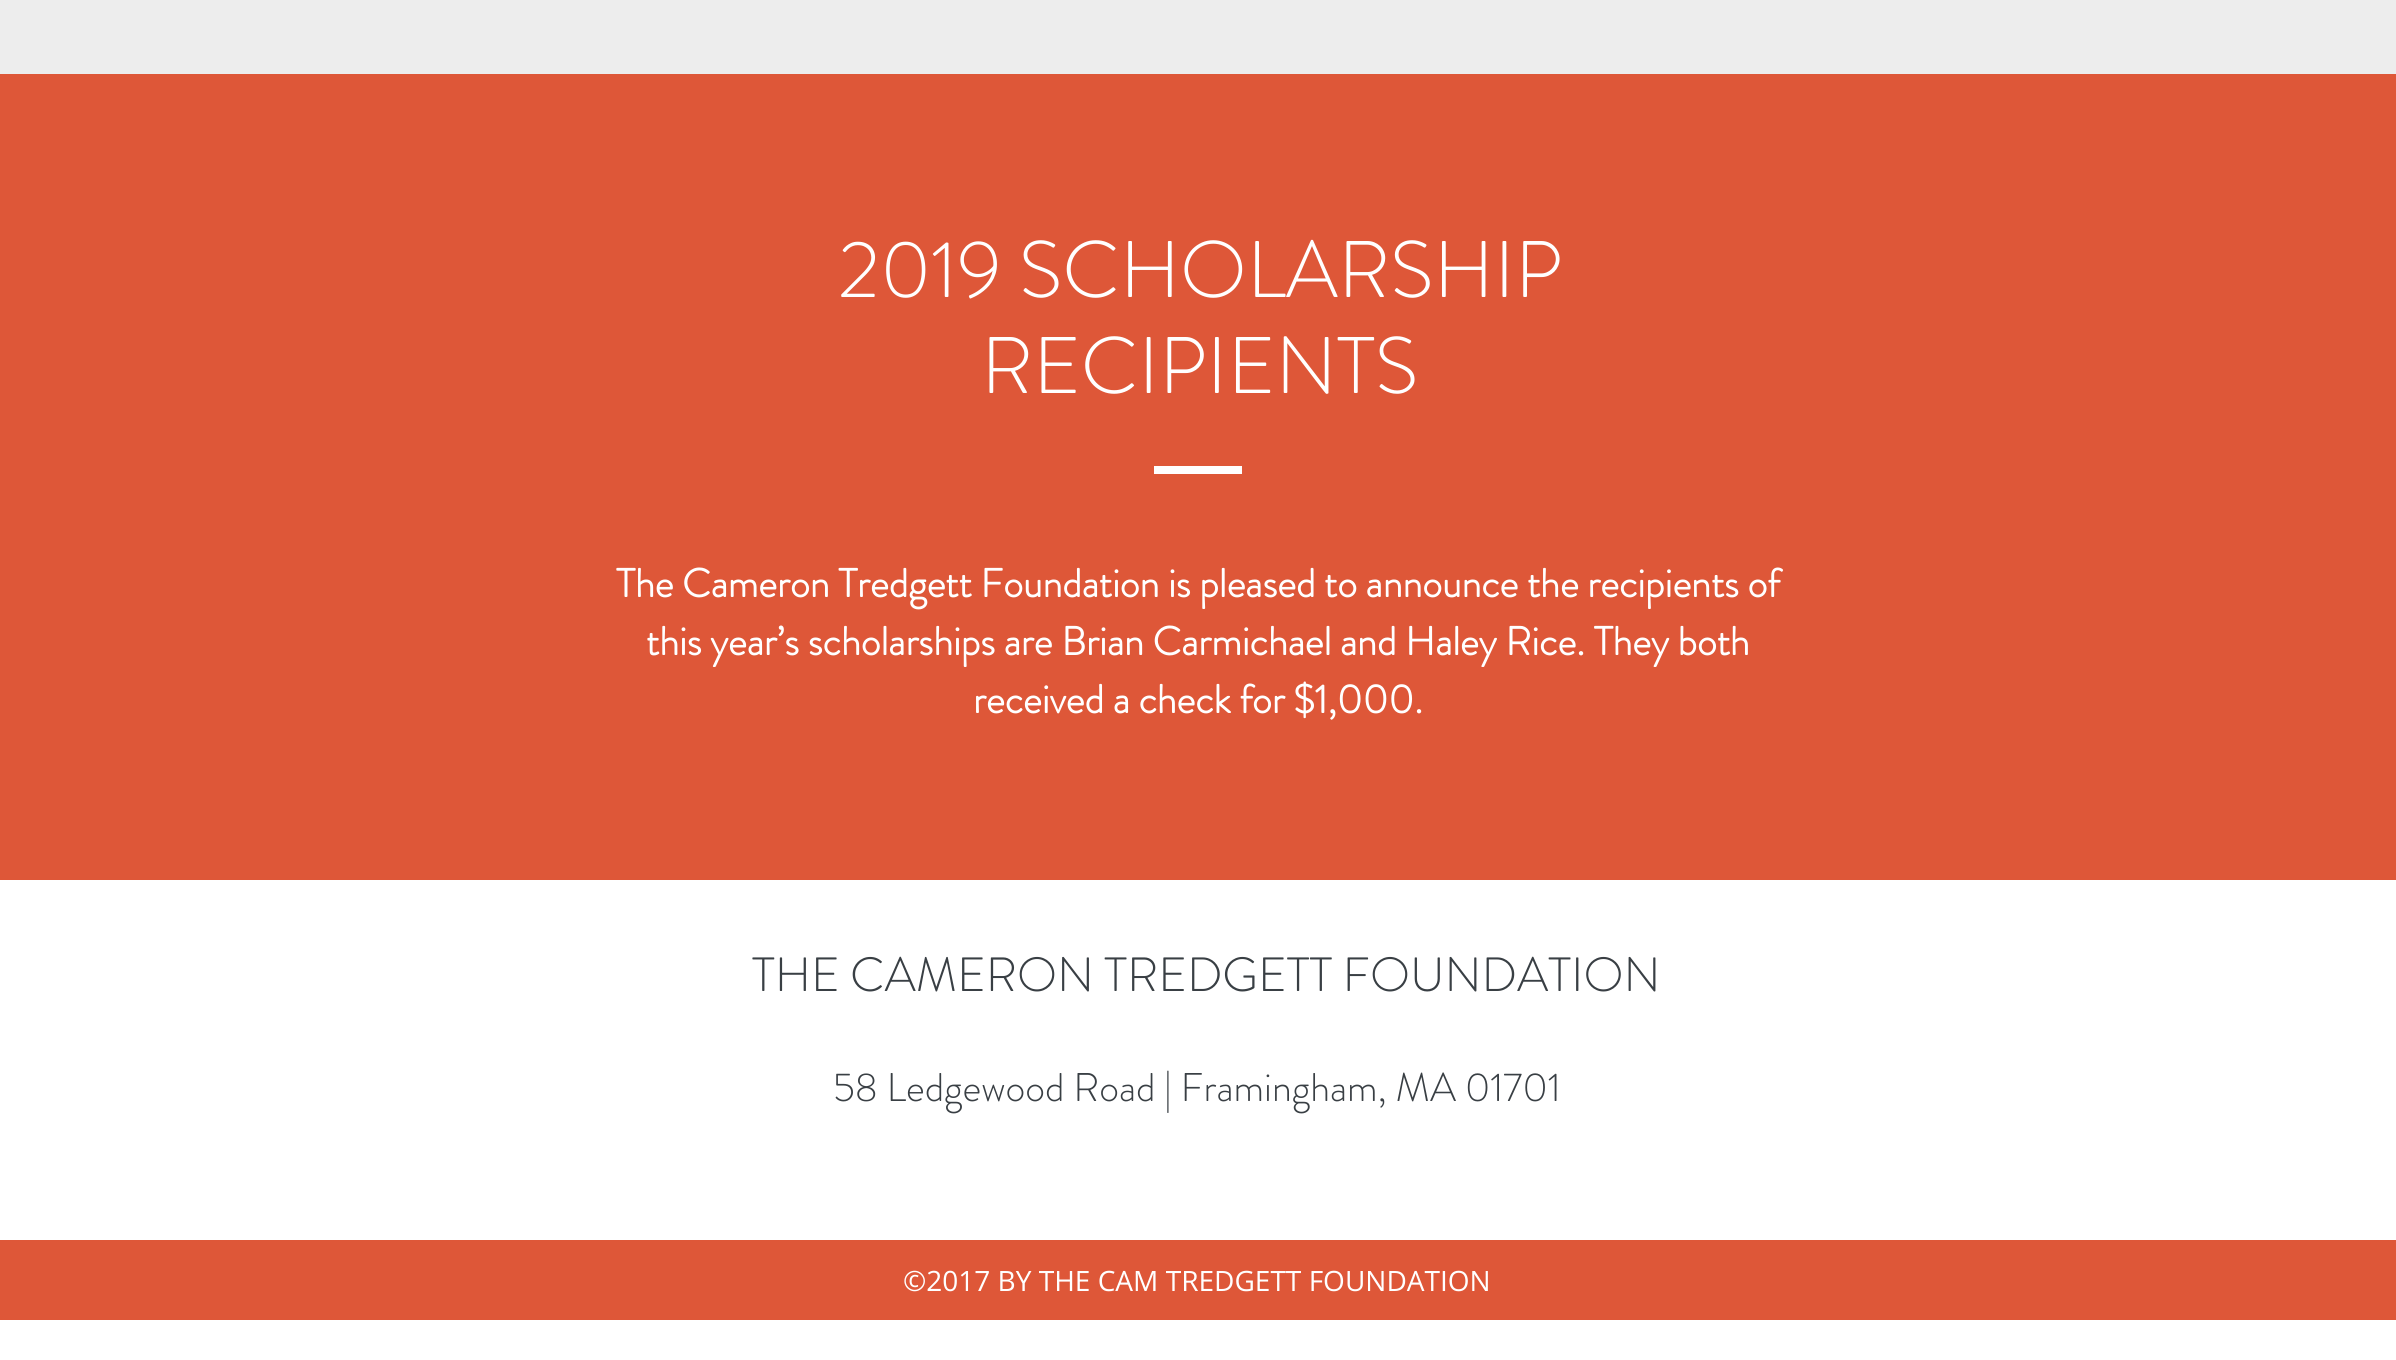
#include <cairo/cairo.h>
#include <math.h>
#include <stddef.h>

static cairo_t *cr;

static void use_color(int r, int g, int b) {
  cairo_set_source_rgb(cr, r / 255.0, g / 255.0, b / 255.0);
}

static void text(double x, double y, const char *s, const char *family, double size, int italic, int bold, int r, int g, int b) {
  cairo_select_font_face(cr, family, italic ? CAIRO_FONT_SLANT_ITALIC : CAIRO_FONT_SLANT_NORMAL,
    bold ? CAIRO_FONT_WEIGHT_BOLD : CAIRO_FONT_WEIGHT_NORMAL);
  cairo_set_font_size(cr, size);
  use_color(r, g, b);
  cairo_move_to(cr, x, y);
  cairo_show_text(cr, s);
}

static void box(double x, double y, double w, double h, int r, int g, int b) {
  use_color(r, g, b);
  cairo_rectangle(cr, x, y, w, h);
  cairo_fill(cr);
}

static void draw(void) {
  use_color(237, 237, 237);
  cairo_paint(cr);
  box(0, 74, 2396, 806, 222, 87, 56);
  box(1154, 466, 88, 8, 255, 255, 255);
  box(0, 880, 2396, 480, 255, 255, 255);
  box(0, 1240, 2396, 80, 222, 87, 56);
  text(838, 297, "2019 SCHOLARSHIP", "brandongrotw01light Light", 80, 0, 0, 255, 255, 255);
  text(981, 393, "RECIPIENTS", "brandongrotw01light Light", 80, 0, 0, 255, 255, 255);
  text(616, 597, "The Cameron Tredgett Foundation is pleased to announce the recipients of", "brandongrotw01light", 40, 0, 1, 255, 255, 255);
  text(646, 655, "this year’s scholarships are Brian Carmichael and Haley Rice. They both", "brandongrotw01light", 40, 0, 1, 255, 255, 255);
  text(973, 713, "received a check for $1,000.", "brandongrotw01light", 40, 0, 1, 255, 255, 255);
  text(752, 991, "THE CAMERON TREDGETT FOUNDATION", "brandongrotw01light Light", 48, 0, 0, 57, 63, 68);
  text(833, 1101, "58 Ledgewood Road | Framingham, MA 01701", "brandongrotw01light Light", 40, 0, 0, 57, 63, 68);
  text(903, 1291, "©2017 BY THE CAM TREDGETT FOUNDATION", "Open Sans", 28, 0, 0, 255, 255, 255);
}

int main(void) {
  cairo_surface_t *surface = cairo_image_surface_create(CAIRO_FORMAT_RGB24, 2396, 1360);
  cr = cairo_create(surface);
  cairo_font_options_t *options = cairo_font_options_create();
  cairo_font_options_set_hint_metrics(options, CAIRO_HINT_METRICS_OFF);
  cairo_font_options_set_hint_style(options, CAIRO_HINT_STYLE_NONE);
  cairo_set_font_options(cr, options);
  cairo_set_miter_limit(cr, 4);
  draw();
  cairo_surface_write_to_png(surface, "out.png");
  cairo_font_options_destroy(options);
  cairo_destroy(cr);
  cairo_surface_destroy(surface);
  return 0;
}
